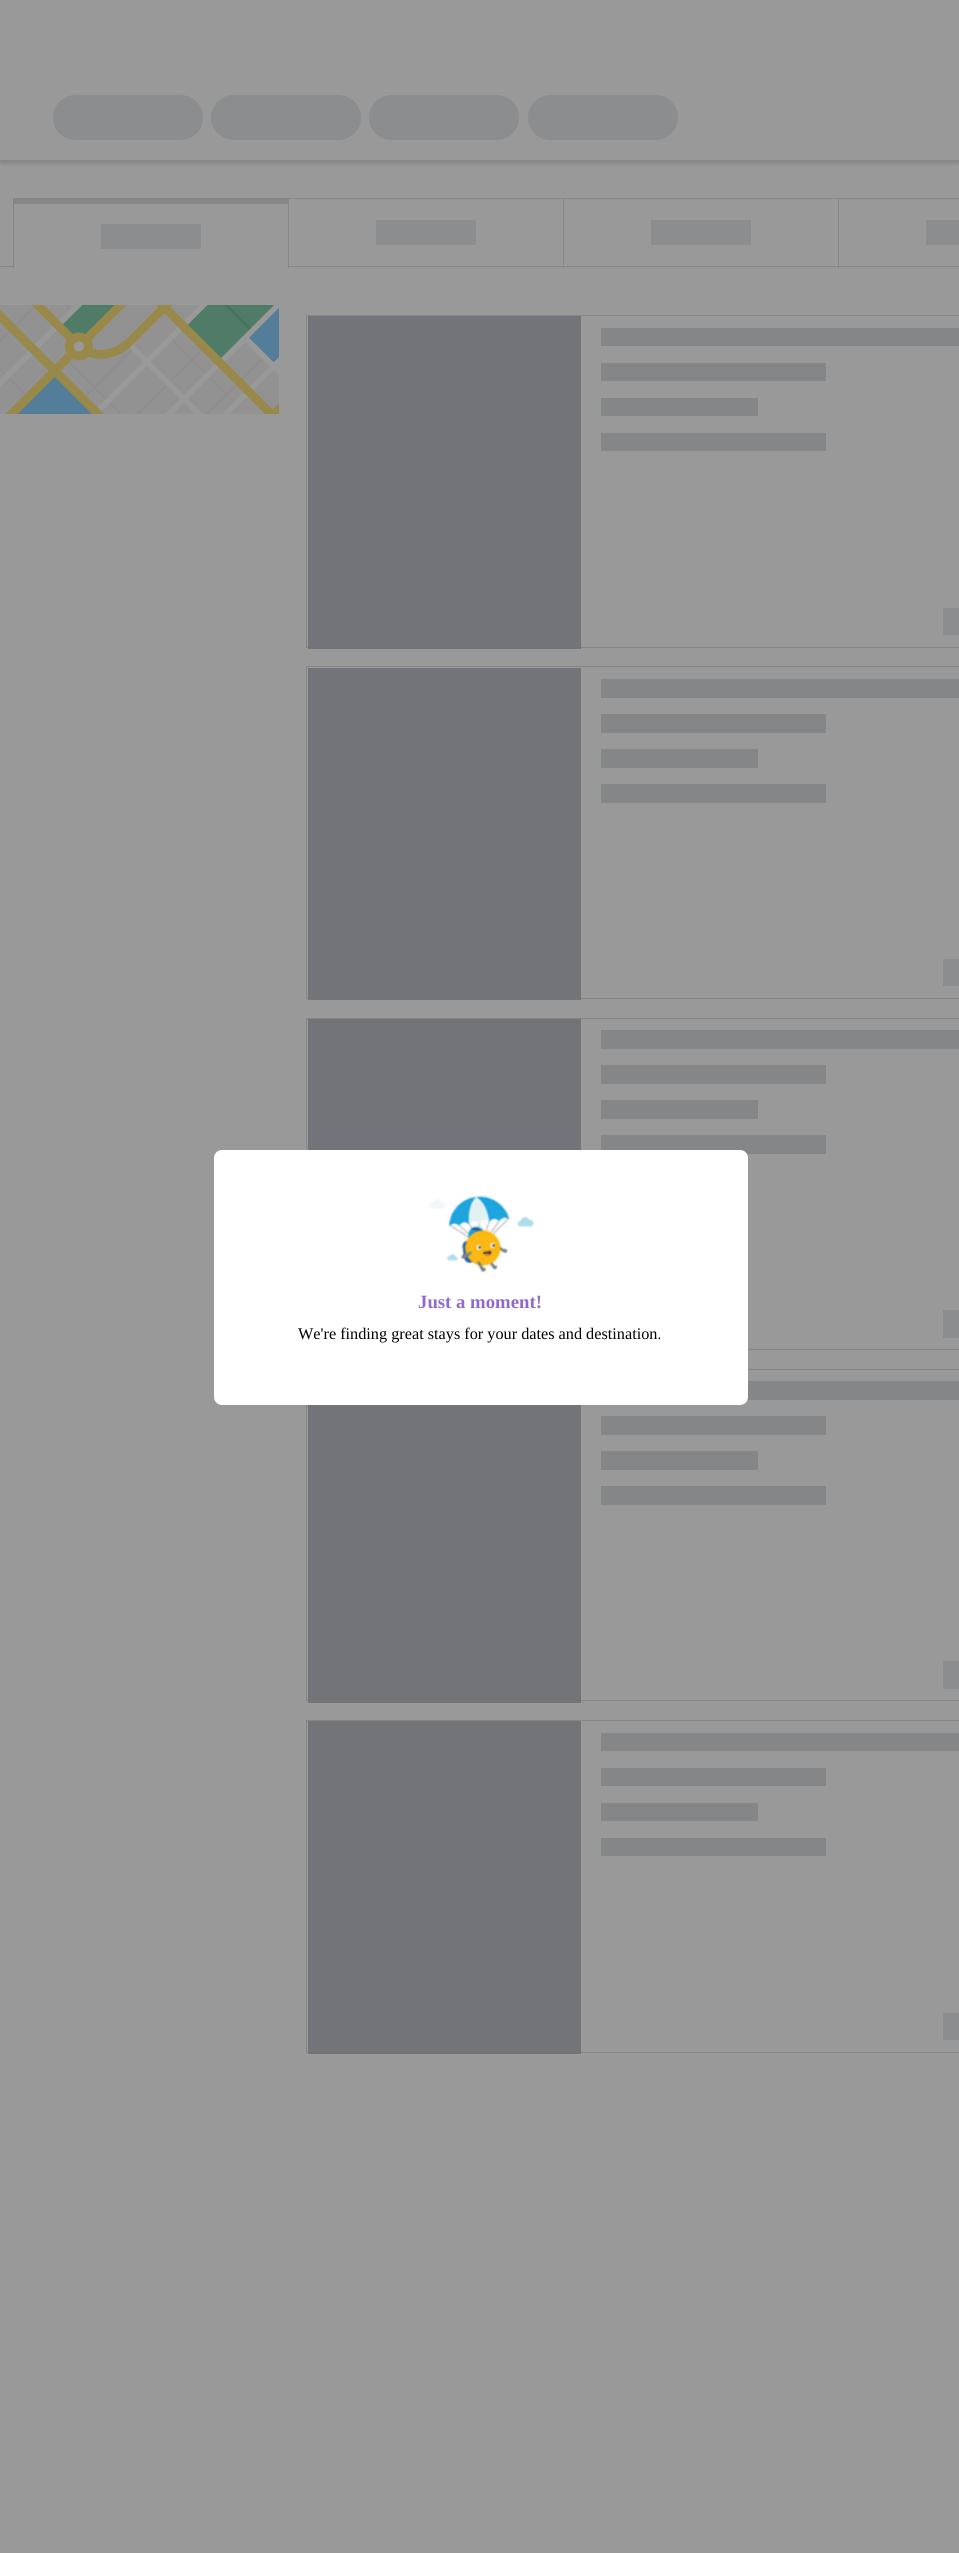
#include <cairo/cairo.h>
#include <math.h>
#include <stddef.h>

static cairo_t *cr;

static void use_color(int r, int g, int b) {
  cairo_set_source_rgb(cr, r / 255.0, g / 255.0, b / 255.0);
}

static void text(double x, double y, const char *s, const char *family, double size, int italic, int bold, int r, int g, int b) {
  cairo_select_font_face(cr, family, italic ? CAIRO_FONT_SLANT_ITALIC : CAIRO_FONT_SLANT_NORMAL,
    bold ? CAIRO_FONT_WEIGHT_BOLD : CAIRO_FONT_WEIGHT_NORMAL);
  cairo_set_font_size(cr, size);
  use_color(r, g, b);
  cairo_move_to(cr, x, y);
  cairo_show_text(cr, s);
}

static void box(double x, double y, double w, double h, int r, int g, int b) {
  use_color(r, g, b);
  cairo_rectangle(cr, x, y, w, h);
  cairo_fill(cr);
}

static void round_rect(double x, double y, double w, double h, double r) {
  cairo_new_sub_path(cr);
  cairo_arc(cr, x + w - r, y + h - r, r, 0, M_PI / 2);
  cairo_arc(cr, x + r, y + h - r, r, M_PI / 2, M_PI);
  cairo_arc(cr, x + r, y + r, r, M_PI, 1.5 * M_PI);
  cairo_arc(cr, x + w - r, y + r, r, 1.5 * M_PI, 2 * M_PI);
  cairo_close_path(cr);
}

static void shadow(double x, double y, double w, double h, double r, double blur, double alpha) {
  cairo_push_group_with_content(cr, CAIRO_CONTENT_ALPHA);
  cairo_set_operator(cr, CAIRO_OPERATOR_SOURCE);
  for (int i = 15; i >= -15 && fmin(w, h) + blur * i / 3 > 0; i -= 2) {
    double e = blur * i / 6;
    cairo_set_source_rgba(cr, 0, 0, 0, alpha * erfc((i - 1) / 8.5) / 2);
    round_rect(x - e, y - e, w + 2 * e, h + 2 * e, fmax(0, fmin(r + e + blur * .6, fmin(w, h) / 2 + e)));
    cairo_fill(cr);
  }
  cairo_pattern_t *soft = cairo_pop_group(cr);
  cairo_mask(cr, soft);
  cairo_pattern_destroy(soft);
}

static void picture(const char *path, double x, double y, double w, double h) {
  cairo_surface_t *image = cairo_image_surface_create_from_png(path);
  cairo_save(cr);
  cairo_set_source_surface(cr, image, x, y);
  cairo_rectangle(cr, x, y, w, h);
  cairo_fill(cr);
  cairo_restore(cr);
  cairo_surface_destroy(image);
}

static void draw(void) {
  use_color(153, 153, 153);
  cairo_paint(cr);
  cairo_save(cr);
  cairo_rectangle(cr, 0, 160, 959, 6);
  cairo_clip(cr);
  use_color(0, 0, 0);
  shadow(0, 78, 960, 85, 0, 2.5, 0.15);
  cairo_restore(cr);
  use_color(140, 141, 143);
  round_rect(53, 95, 150, 45, 22.5);
  cairo_fill(cr);
  round_rect(211, 95, 150, 45, 22.5);
  cairo_fill(cr);
  round_rect(369, 95, 150, 45, 22.5);
  cairo_fill(cr);
  round_rect(528, 95, 150, 45, 22.5);
  cairo_fill(cr);
  box(13, 198, 275, 6, 133, 134, 136);
  box(13, 198, 1, 70, 133, 134, 136);
  box(101, 224, 100, 25, 140, 141, 143);
  box(288, 198, 671, 1, 133, 134, 136);
  box(288, 266, 671, 1, 133, 134, 136);
  box(288, 198, 1, 70, 133, 134, 136);
  box(376, 220, 100, 25, 140, 141, 143);
  box(0, 266, 13, 1, 133, 134, 136);
  box(563, 198, 1, 70, 133, 134, 136);
  box(651, 220, 100, 25, 140, 141, 143);
  box(838, 198, 1, 70, 133, 134, 136);
  box(926, 220, 33, 25, 140, 141, 143);
  picture("img_01.png", 0, 305, 279, 109);
  cairo_rectangle(cr, 306.5, 315.5, 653, 332);
  use_color(133, 133, 133);
  cairo_set_line_width(cr, 1);
  cairo_stroke(cr);
  box(308, 316, 273, 333, 114, 116, 121);
  box(601, 328, 358, 18, 133, 134, 136);
  box(601, 363, 225, 18, 133, 134, 136);
  box(601, 398, 157, 18, 133, 134, 136);
  box(601, 433, 225, 18, 133, 134, 136);
  box(943, 608, 16, 27, 140, 141, 143);
  cairo_rectangle(cr, 306.5, 666.5, 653, 332);
  use_color(133, 133, 133);
  cairo_stroke(cr);
  box(308, 668, 273, 332, 114, 116, 121);
  box(601, 679, 358, 19, 133, 134, 136);
  box(601, 714, 225, 19, 133, 134, 136);
  box(601, 749, 157, 19, 133, 134, 136);
  box(601, 784, 225, 19, 133, 134, 136);
  box(943, 959, 16, 27, 140, 141, 143);
  cairo_rectangle(cr, 306.5, 1018.5, 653, 331);
  use_color(133, 133, 133);
  cairo_stroke(cr);
  box(308, 1019, 273, 131, 114, 116, 121);
  box(601, 1030, 358, 19, 133, 134, 136);
  box(601, 1065, 225, 19, 133, 134, 136);
  box(601, 1100, 157, 19, 133, 134, 136);
  box(601, 1135, 225, 19, 133, 134, 136);
  box(943, 1310, 16, 28, 140, 141, 143);
  cairo_rectangle(cr, 306.5, 1369.5, 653, 331);
  use_color(133, 133, 133);
  cairo_stroke(cr);
  box(308, 1405, 273, 298, 114, 116, 121);
  box(747, 1381, 212, 19, 133, 134, 136);
  box(601, 1416, 225, 19, 133, 134, 136);
  box(601, 1451, 157, 19, 133, 134, 136);
  box(601, 1486, 225, 19, 133, 134, 136);
  box(943, 1661, 16, 28, 140, 141, 143);
  cairo_rectangle(cr, 306.5, 1720.5, 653, 332);
  use_color(133, 133, 133);
  cairo_stroke(cr);
  box(308, 1721, 273, 333, 114, 116, 121);
  box(601, 1733, 358, 18, 133, 134, 136);
  box(601, 1768, 225, 18, 133, 134, 136);
  box(601, 1803, 157, 18, 133, 134, 136);
  box(601, 1838, 225, 18, 133, 134, 136);
  box(943, 2013, 16, 27, 140, 141, 143);
  use_color(255, 255, 255);
  round_rect(214, 1150, 534, 255, 8);
  cairo_fill(cr);
  picture("img_02.png", 429, 1195, 106, 78);
  text(418, 1308, "Just a moment!", "Liberation Serif", 18.75, 0, 1, 142, 106, 203);
  text(298, 1339, "We're finding great stays for your dates and destination.", "Liberation Serif", 16.25, 0, 0, 0, 0, 0);
}

int main(void) {
  cairo_surface_t *surface = cairo_image_surface_create(CAIRO_FORMAT_RGB24, 959, 2553);
  cr = cairo_create(surface);
  cairo_font_options_t *options = cairo_font_options_create();
  cairo_font_options_set_hint_metrics(options, CAIRO_HINT_METRICS_OFF);
  cairo_font_options_set_hint_style(options, CAIRO_HINT_STYLE_NONE);
  cairo_set_font_options(cr, options);
  cairo_set_miter_limit(cr, 4);
  draw();
  cairo_surface_write_to_png(surface, "out.png");
  cairo_font_options_destroy(options);
  cairo_destroy(cr);
  cairo_surface_destroy(surface);
  return 0;
}
